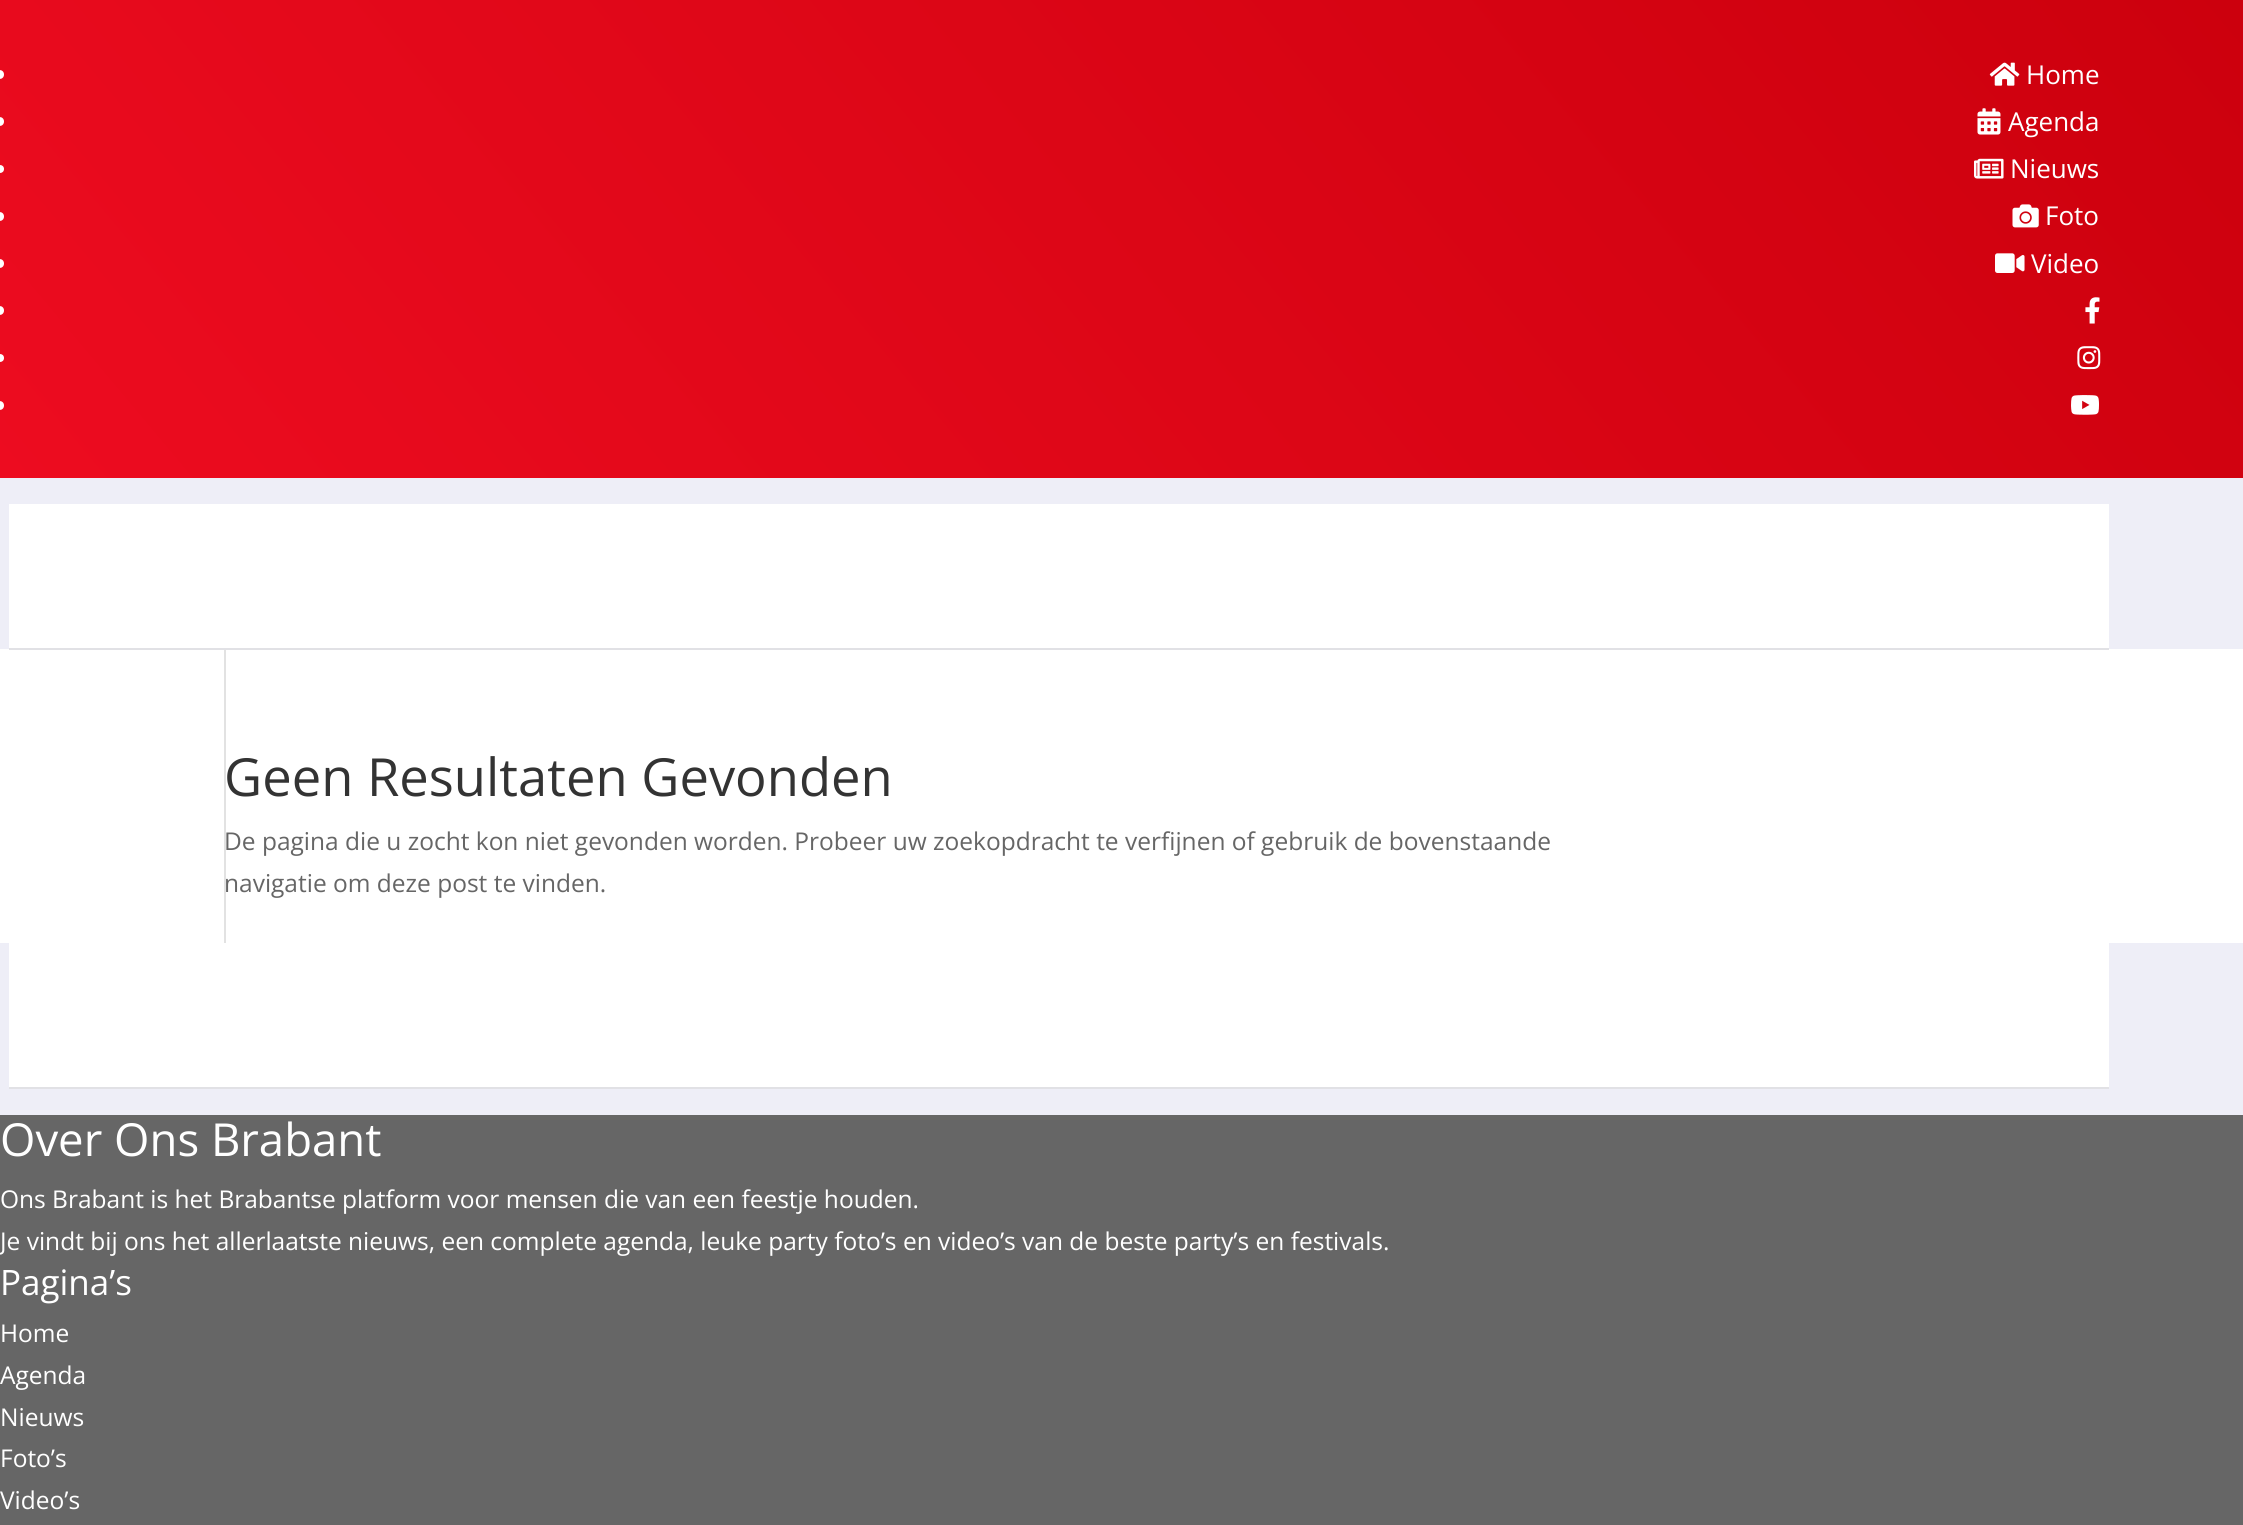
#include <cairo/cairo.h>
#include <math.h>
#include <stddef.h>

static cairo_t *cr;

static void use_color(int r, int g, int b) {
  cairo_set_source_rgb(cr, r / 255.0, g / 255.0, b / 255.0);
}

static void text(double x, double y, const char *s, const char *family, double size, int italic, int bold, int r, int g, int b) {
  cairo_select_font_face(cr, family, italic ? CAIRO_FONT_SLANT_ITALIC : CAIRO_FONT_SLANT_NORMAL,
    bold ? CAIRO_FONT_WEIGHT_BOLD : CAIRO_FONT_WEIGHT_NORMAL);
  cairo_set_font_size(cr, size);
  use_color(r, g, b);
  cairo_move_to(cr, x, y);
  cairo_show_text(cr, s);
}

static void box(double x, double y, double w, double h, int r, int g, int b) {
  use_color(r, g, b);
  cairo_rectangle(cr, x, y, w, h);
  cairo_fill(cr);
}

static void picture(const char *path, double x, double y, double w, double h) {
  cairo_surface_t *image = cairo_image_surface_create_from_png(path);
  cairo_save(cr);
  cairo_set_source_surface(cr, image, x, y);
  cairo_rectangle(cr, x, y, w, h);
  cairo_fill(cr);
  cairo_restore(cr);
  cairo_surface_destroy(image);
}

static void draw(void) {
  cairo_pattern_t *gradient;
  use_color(238, 238, 247);
  cairo_paint(cr);
  gradient = cairo_pattern_create_linear(346, 890, 1898, -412);
  cairo_pattern_add_color_stop_rgba(gradient, 0, 0.929, 0.047, 0.125, 1);
  cairo_pattern_add_color_stop_rgba(gradient, 1, 0.8, 0, 0.051, 1);
  cairo_set_source(cr, gradient);
  cairo_pattern_destroy(gradient);
  cairo_rectangle(cr, 0, 0, 2243, 478);
  cairo_fill(cr);
  use_color(255, 255, 255);
  cairo_arc(cr, -0.5, 74.5, 4.5, 0, 2 * M_PI);
  cairo_fill(cr);
  picture("img_01.png", 1989, 62, 31, 24);
  cairo_arc(cr, -0.5, 121.5, 4.5, 0, 2 * M_PI);
  cairo_fill(cr);
  picture("img_02.png", 1977, 108, 24, 27);
  cairo_arc(cr, 0, 169, 4, 0, 2 * M_PI);
  cairo_fill(cr);
  picture("img_03.png", 1974, 158, 30, 21);
  cairo_arc(cr, -0.5, 216.5, 4.5, 0, 2 * M_PI);
  cairo_fill(cr);
  picture("img_04.png", 2012, 204, 27, 24);
  cairo_arc(cr, -0.5, 263.5, 4.5, 0, 2 * M_PI);
  cairo_fill(cr);
  picture("img_05.png", 1995, 253, 30, 20);
  cairo_arc(cr, -0.5, 310.5, 4.5, 0, 2 * M_PI);
  cairo_fill(cr);
  picture("img_06.png", 2085, 297, 15, 27);
  cairo_arc(cr, 0, 358, 4, 0, 2 * M_PI);
  cairo_fill(cr);
  picture("img_07.png", 2077, 346, 24, 24);
  cairo_arc(cr, -0.5, 405.5, 4.5, 0, 2 * M_PI);
  cairo_fill(cr);
  picture("img_08.png", 2071, 395, 28, 20);
  box(9, 504, 2100, 144, 255, 255, 255);
  box(0, 649, 2243, 294, 255, 255, 255);
  box(224, 649, 2, 294, 226, 226, 226);
  box(9, 648, 2100, 2, 225, 225, 229);
  box(9, 943, 2100, 144, 255, 255, 255);
  box(9, 1087, 2100, 2, 225, 225, 229);
  box(0, 1115, 2243, 410, 102, 102, 102);
  text(2026, 84, "Home", "Open Sans", 26, 0, 0, 255, 255, 255);
  text(2008, 131, "Agenda", "Open Sans", 26, 0, 0, 255, 255, 255);
  text(2010, 178, "Nieuws", "Open Sans", 26, 0, 0, 255, 255, 255);
  text(2045, 225, "Foto", "Open Sans", 26, 0, 0, 255, 255, 255);
  text(2031, 273, "Video", "Open Sans", 26, 0, 0, 255, 255, 255);
  text(224, 796, "Geen Resultaten Gevonden", "Open Sans", 52.5, 0, 0, 51, 51, 51);
  text(224, 850, "De pagina die u zocht kon niet gevonden worden. Probeer uw zoekopdracht te verfijnen of gebruik de bovenstaande", "Open Sans", 24.5, 0, 0, 102, 102, 102);
  text(224, 892, "navigatie om deze post te vinden.", "Open Sans", 24.5, 0, 0, 102, 102, 102);
  text(0, 1156, "Over Ons Brabant", "Open Sans", 45.5, 0, 0, 255, 255, 255);
  text(0, 1208, "Ons Brabant is het Brabantse platform voor mensen die van een feestje houden.", "Open Sans", 24.5, 0, 0, 255, 255, 255);
  text(0, 1250, "Je vindt bij ons het allerlaatste nieuws, een complete agenda, leuke party foto’s en video’s van de beste party’s en festivals.", "Open Sans", 24.5, 0, 0, 255, 255, 255);
  text(0, 1295, "Pagina’s", "Open Sans", 35, 0, 0, 255, 255, 255);
  text(0, 1342, "Home", "Open Sans", 24.5, 0, 0, 255, 255, 255);
  text(0, 1384, "Agenda", "Open Sans", 24.5, 0, 0, 255, 255, 255);
  text(0, 1426, "Nieuws", "Open Sans", 24.5, 0, 0, 255, 255, 255);
  text(0, 1467, "Foto’s", "Open Sans", 24.5, 0, 0, 255, 255, 255);
  text(0, 1509, "Video’s", "Open Sans", 24.5, 0, 0, 255, 255, 255);
}

int main(void) {
  cairo_surface_t *surface = cairo_image_surface_create(CAIRO_FORMAT_RGB24, 2243, 1525);
  cr = cairo_create(surface);
  cairo_font_options_t *options = cairo_font_options_create();
  cairo_font_options_set_hint_metrics(options, CAIRO_HINT_METRICS_OFF);
  cairo_font_options_set_hint_style(options, CAIRO_HINT_STYLE_NONE);
  cairo_set_font_options(cr, options);
  cairo_set_miter_limit(cr, 4);
  draw();
  cairo_surface_write_to_png(surface, "out.png");
  cairo_font_options_destroy(options);
  cairo_destroy(cr);
  cairo_surface_destroy(surface);
  return 0;
}
